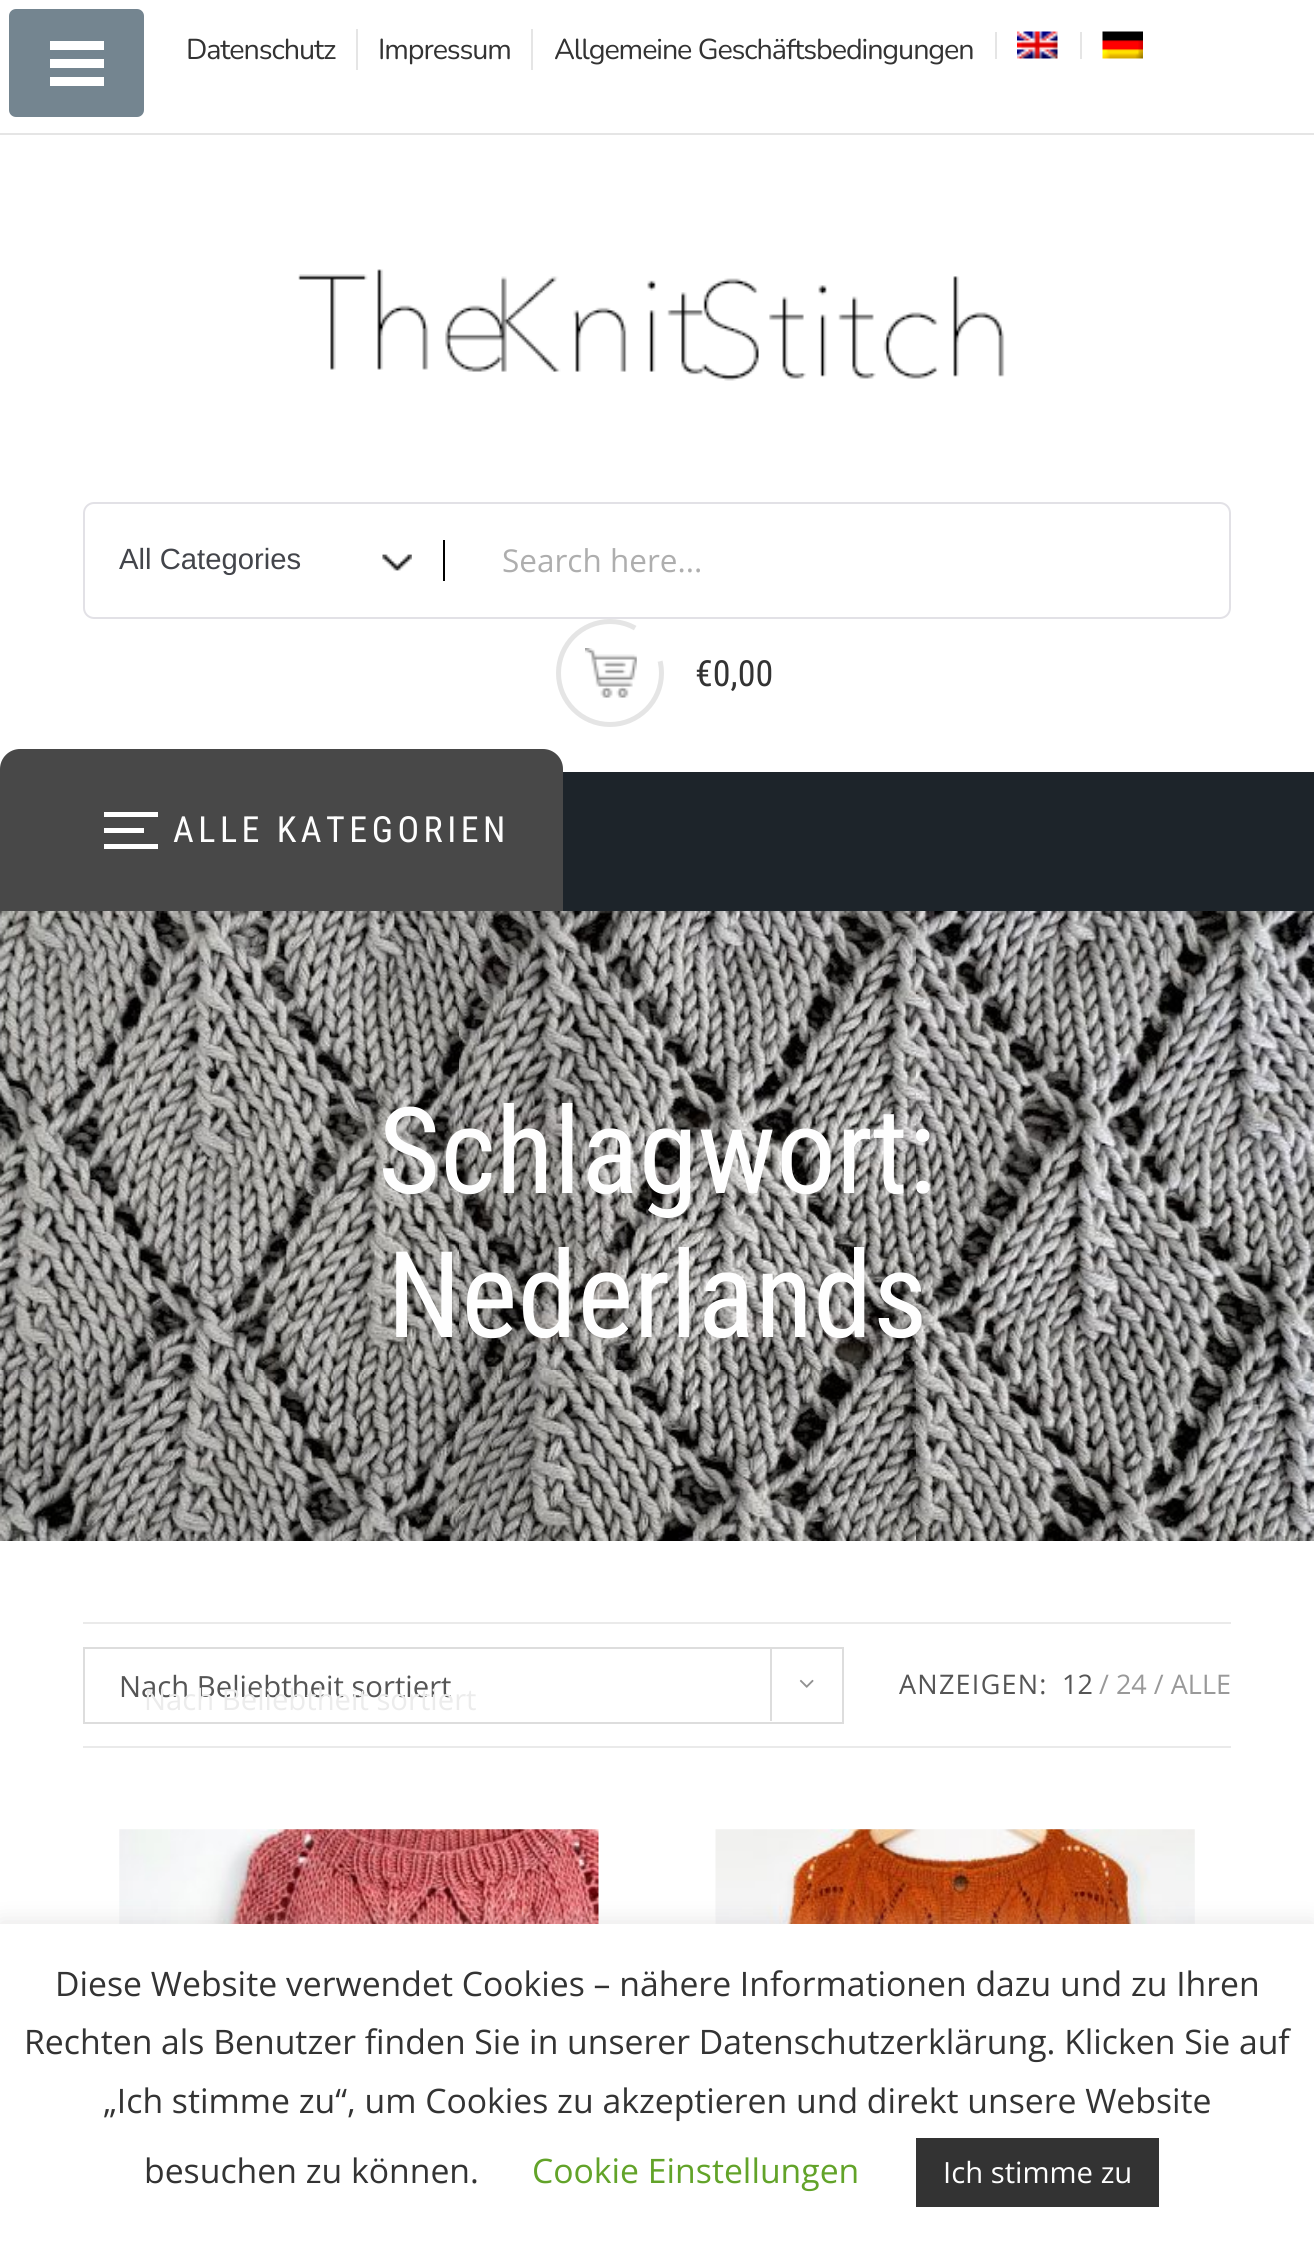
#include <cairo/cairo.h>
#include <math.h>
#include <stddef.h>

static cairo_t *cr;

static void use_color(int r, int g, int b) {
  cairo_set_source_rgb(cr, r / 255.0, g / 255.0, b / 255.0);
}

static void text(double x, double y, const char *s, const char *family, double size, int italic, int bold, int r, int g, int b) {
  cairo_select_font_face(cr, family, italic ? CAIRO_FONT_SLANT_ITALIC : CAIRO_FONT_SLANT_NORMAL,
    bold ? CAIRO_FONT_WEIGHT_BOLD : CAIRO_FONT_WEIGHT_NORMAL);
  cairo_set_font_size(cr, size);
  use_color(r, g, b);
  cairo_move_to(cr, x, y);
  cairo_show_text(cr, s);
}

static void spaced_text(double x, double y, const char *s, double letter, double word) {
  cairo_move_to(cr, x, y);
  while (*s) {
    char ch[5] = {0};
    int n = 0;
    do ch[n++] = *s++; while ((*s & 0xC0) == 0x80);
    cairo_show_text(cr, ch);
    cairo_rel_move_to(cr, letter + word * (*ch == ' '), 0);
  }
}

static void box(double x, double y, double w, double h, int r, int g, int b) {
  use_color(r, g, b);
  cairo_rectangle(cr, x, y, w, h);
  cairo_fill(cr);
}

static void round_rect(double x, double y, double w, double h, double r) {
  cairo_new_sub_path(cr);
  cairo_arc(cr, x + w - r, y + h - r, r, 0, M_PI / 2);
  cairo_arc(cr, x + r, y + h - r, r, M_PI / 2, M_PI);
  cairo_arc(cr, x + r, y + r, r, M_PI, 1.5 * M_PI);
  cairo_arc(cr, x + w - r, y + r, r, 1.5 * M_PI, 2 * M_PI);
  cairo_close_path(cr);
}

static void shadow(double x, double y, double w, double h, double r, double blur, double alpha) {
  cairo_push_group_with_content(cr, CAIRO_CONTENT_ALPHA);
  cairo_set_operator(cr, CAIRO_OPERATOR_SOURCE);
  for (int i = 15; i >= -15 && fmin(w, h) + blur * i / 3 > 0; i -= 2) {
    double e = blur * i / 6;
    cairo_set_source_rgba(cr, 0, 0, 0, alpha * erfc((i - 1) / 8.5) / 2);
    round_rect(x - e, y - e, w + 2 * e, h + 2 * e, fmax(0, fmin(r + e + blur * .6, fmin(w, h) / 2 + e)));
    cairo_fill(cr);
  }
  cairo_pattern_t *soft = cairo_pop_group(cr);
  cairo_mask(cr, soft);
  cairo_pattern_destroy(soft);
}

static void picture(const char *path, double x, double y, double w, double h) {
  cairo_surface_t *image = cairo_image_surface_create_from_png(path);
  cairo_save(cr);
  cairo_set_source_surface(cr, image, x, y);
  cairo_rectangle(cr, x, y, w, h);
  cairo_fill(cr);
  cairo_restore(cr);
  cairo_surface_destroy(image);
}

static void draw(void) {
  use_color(255, 255, 255);
  cairo_paint(cr);
  box(0, 133, 1314, 2, 229, 229, 229);
  box(356, 29, 2, 41, 229, 229, 229);
  box(531, 29, 2, 41, 229, 229, 229);
  box(995, 32, 2, 27, 229, 229, 229);
  picture("img_01.png", 1017, 31, 41, 28);
  box(1080, 32, 2, 27, 229, 229, 229);
  picture("img_02.png", 1102, 31, 41, 28);
  picture("img_03.png", 298, 269, 707, 112);
  cairo_arc(cr, 610, 673, 51.5, 0, 2 * M_PI);
  cairo_set_line_width(cr, 5);
  cairo_stroke(cr);
  picture("img_05.png", 585, 648, 52, 50);
  use_color(255, 255, 255);
  cairo_arc(cr, 654.5, 639.5, 22.5, 0, 2 * M_PI);
  cairo_fill(cr);
  round_rect(84, 503, 1146, 115, 10);
  use_color(226, 225, 230);
  cairo_set_line_width(cr, 2);
  cairo_stroke(cr);
  picture("img_04.png", 382, 554, 30, 17);
  box(443, 540, 2, 41, 0, 0, 0);
  box(563, 772, 751, 139, 29, 36, 42);
  use_color(116, 133, 144);
  round_rect(10, 10, 133, 106, 6);
  cairo_fill_preserve(cr);
  cairo_stroke(cr);
  box(50, 59, 54, 9, 255, 255, 255);
  box(50, 41, 54, 9, 255, 255, 255);
  box(50, 77, 54, 9, 255, 255, 255);
  use_color(72, 72, 72);
  cairo_new_path(cr);
  cairo_move_to(cr, 20, 749);
  cairo_line_to(cr, 543, 749);
  cairo_curve_to(cr, 554, 749, 563, 758, 563, 769);
  cairo_line_to(cr, 563, 911);
  cairo_line_to(cr, 0, 911);
  cairo_line_to(cr, 0, 769);
  cairo_curve_to(cr, 0, 758, 9, 749, 20, 749);
  cairo_close_path(cr);
  cairo_fill(cr);
  box(104, 828, 40, 5, 255, 255, 255);
  box(104, 812, 54, 5, 255, 255, 255);
  box(104, 844, 54, 5, 255, 255, 255);
  picture("img_06.png", 0, 911, 1314, 630);
  box(83, 1622, 1148, 2, 234, 234, 234);
  box(83, 1746, 1148, 2, 234, 234, 234);
  cairo_rectangle(cr, 84, 1648, 759, 75);
  use_color(221, 221, 221);
  cairo_stroke(cr);
  box(770, 1649, 2, 72, 221, 221, 221);
  picture("img_07.png", 799, 1679, 15, 9);
  cairo_new_path(cr);
  cairo_move_to(cr, 814.5, 1681);
  cairo_line_to(cr, 823.5, 1690);
  cairo_line_to(cr, 832.5, 1681);
  use_color(255, 255, 255);
  cairo_set_line_width(cr, 4.5);
  cairo_stroke(cr);
  picture("img_08.png", 119, 1829, 480, 95);
  picture("img_09.png", 715, 1829, 480, 95);
  use_color(172, 171, 171);
  shadow(0, 1922, 1314, 321, 0, 11, 0.3);
  box(0, 1924, 1314, 320, 255, 255, 255);
  box(916, 2138, 243, 69, 51, 51, 51);
  cairo_select_font_face(cr, "Nunito", CAIRO_FONT_SLANT_NORMAL, CAIRO_FONT_WEIGHT_NORMAL);
  cairo_set_font_size(cr, 28.75);
  spaced_text(186, 59, "Datenschutz", -1.1, 0);
  spaced_text(378, 59, "Impressum", -1.1, 0);
  spaced_text(554, 59, "Allgemeine Geschäftsbedingungen", -1.1, 0);
  text(119, 569, "All Categories", "Liberation Sans", 29.25, 0, 0, 67, 69, 75);
  text(502, 572, "Search here...", "Open Sans", 31.5, 0, 0, 174, 174, 174);
  text(695, 686, "€0,00", "Roboto Condensed", 36, 0, 0, 51, 51, 51);
  use_color(254, 254, 254);
  spaced_text(173, 842, "ALLE KATEGORIEN", 4.5, 0);
  text(378, 1193, "Schlagwort:", "Roboto Condensed", 120, 0, 0, 254, 254, 254);
  text(387, 1337, "Nederlands", "Roboto Condensed", 120, 0, 0, 254, 254, 254);
  text(119, 1697, "Nach Beliebtheit sortiert", "Open Sans", 29.25, 0, 0, 85, 85, 85);
  text(144, 1710, "Nach Beliebtheit sortiert", "Open Sans", 29.25, 0, 0, 236, 236, 236);
  cairo_set_font_size(cr, 27);
  use_color(85, 85, 85);
  spaced_text(899, 1694, "ANZEIGEN:", 1.25, 0);
  text(1062, 1694, "12", "Open Sans", 27, 0, 0, 85, 85, 85);
  text(1099, 1694, "/ 24 / ALLE", "Open Sans", 27, 0, 0, 153, 153, 153);
  text(55, 1996, "Diese Website verwendet Cookies – nähere Informationen dazu und zu Ihren", "Open Sans", 33.75, 0, 0, 51, 51, 51);
  text(24, 2054, "Rechten als Benutzer finden Sie in unserer Datenschutzerklärung. Klicken Sie auf", "Open Sans", 33.75, 0, 0, 51, 51, 51);
  text(103, 2113, "„Ich stimme zu“, um Cookies zu akzeptieren und direkt unsere Website", "Open Sans", 33.75, 0, 0, 51, 51, 51);
  text(144, 2183, "besuchen zu können.", "Open Sans", 33.75, 0, 0, 51, 51, 51);
  text(532, 2183, "Cookie Einstellungen", "Open Sans", 33.75, 0, 0, 98, 163, 41);
  text(943, 2183, "Ich stimme zu", "Open Sans", 29.25, 0, 0, 254, 254, 254);
}

int main(void) {
  cairo_surface_t *surface = cairo_image_surface_create(CAIRO_FORMAT_RGB24, 1314, 2244);
  cr = cairo_create(surface);
  cairo_font_options_t *options = cairo_font_options_create();
  cairo_font_options_set_hint_metrics(options, CAIRO_HINT_METRICS_OFF);
  cairo_font_options_set_hint_style(options, CAIRO_HINT_STYLE_NONE);
  cairo_set_font_options(cr, options);
  cairo_set_miter_limit(cr, 4);
  draw();
  cairo_surface_write_to_png(surface, "out.png");
  cairo_font_options_destroy(options);
  cairo_destroy(cr);
  cairo_surface_destroy(surface);
  return 0;
}
